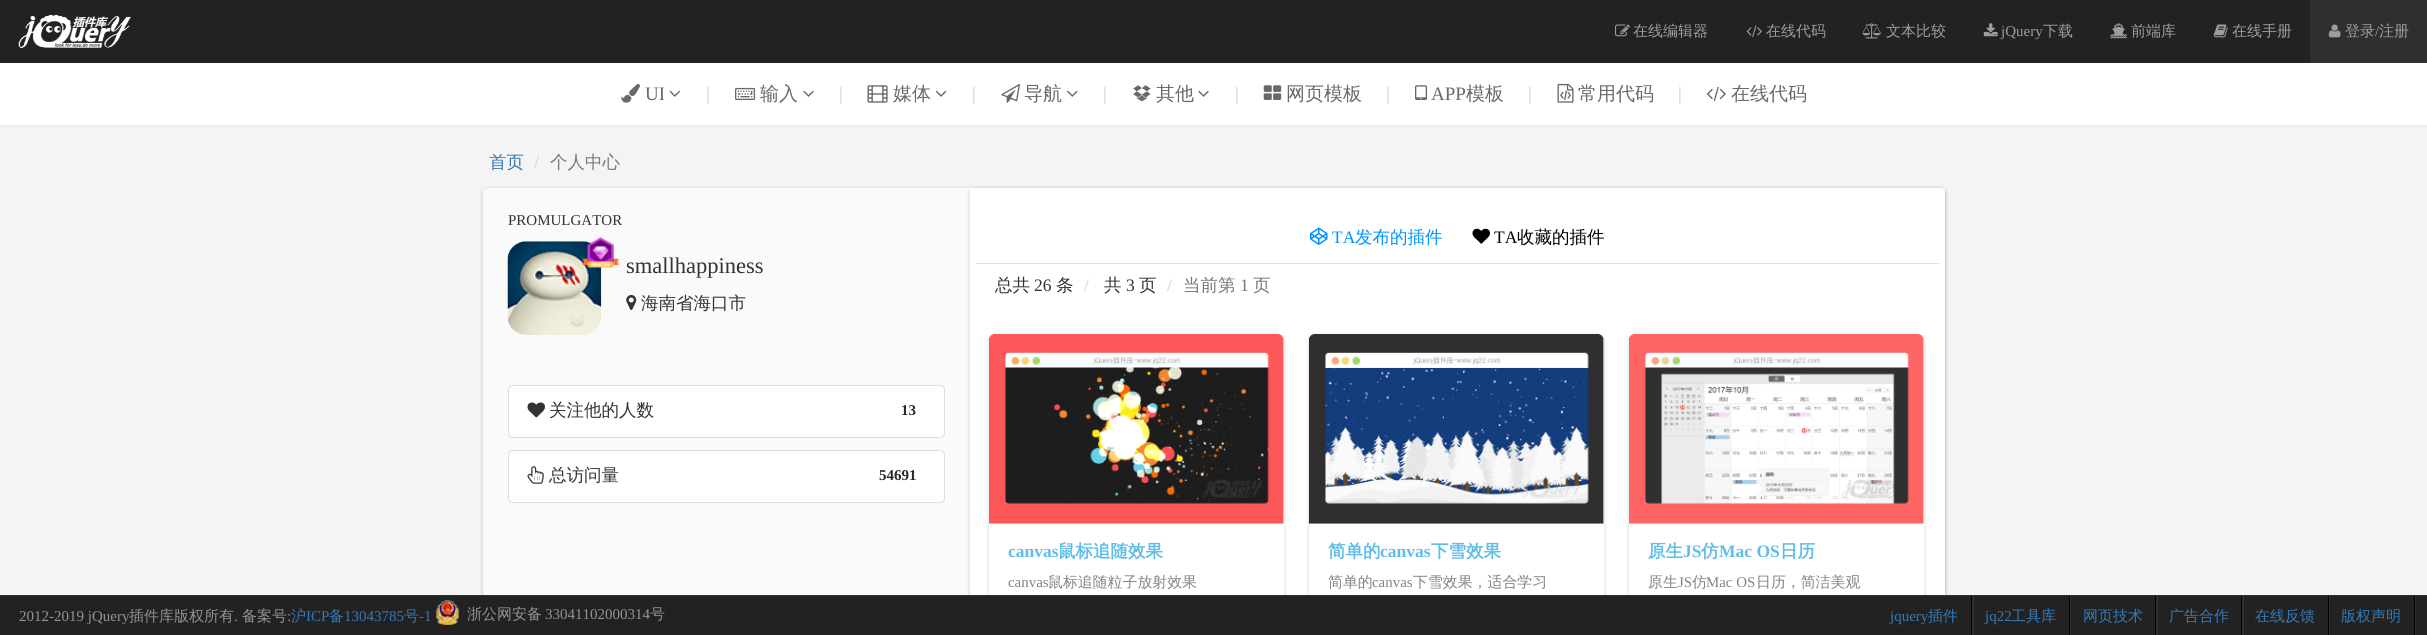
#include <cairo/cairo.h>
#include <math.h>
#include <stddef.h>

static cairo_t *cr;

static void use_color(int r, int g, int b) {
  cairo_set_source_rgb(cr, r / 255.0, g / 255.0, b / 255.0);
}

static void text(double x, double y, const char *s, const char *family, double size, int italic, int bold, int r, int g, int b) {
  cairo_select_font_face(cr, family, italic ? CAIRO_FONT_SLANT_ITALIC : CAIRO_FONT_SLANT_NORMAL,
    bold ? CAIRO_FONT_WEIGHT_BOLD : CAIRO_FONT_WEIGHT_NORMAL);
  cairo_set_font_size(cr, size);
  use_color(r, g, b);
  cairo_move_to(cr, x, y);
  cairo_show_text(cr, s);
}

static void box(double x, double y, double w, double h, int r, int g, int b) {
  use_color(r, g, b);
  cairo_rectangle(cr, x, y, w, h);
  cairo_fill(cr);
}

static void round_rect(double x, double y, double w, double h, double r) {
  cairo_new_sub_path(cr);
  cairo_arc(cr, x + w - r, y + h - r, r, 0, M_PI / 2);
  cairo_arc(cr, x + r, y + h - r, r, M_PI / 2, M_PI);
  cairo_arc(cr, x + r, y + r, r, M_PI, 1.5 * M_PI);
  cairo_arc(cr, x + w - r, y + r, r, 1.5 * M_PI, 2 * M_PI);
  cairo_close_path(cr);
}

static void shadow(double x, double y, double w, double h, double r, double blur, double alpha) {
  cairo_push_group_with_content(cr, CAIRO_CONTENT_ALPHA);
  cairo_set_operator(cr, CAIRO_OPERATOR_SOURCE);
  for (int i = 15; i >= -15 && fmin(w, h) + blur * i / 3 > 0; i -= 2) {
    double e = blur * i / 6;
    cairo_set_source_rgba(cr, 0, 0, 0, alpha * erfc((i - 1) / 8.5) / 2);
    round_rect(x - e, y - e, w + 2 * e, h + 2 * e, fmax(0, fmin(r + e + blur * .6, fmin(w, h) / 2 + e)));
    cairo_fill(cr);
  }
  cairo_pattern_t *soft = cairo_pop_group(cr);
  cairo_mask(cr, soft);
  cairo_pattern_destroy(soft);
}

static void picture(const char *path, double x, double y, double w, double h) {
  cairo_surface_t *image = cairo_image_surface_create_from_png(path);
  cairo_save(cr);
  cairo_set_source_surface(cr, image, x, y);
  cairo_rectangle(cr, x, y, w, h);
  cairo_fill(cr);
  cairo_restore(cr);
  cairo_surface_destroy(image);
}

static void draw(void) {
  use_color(244, 244, 244);
  cairo_paint(cr);
  use_color(0, 0, 0);
  shadow(0, 64, 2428, 62, 0, 2, 0.07);
  box(0, 0, 2310, 63, 34, 34, 34);
  picture("img_01.png", 18, 14, 113, 34);
  picture("img_02.png", 1615, 24, 15, 13);
  picture("img_03.png", 1746, 25, 16, 13);
  picture("img_04.png", 1862, 23, 19, 16);
  picture("img_05.png", 1983, 23, 15, 14);
  picture("img_06.png", 2110, 23, 17, 16);
  picture("img_07.png", 2213, 24, 15, 14);
  box(2310, 0, 117, 63, 47, 47, 47);
  picture("img_08.png", 2328, 24, 13, 14);
  box(0, 63, 2427, 62, 255, 255, 255);
  picture("img_09.png", 621, 84, 19, 19);
  picture("img_10.png", 669, 90, 11, 7);
  picture("img_11.png", 735, 87, 21, 13);
  picture("img_12.png", 803, 90, 11, 7);
  picture("img_13.png", 867, 85, 21, 18);
  picture("img_14.png", 935, 90, 12, 7);
  picture("img_15.png", 1001, 84, 19, 19);
  picture("img_16.png", 1067, 90, 11, 7);
  picture("img_17.png", 1133, 85, 18, 17);
  picture("img_12.png", 1198, 90, 11, 7);
  picture("img_18.png", 1263, 85, 19, 15);
  picture("img_19.png", 1415, 85, 13, 15);
  picture("img_20.png", 1557, 83, 17, 20);
  picture("img_21.png", 1706, 86, 20, 16);
  use_color(0, 0, 0);
  shadow(483, 189, 1462, 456, 4, 2, 0.2);
  use_color(250, 250, 250);
  cairo_new_path(cr);
  cairo_move_to(cr, 487, 188);
  cairo_line_to(cr, 1945, 188);
  cairo_line_to(cr, 1945, 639);
  cairo_line_to(cr, 487, 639);
  cairo_curve_to(cr, 485, 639, 483, 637, 483, 635);
  cairo_line_to(cr, 483, 192);
  cairo_curve_to(cr, 483, 190, 485, 188, 487, 188);
  cairo_close_path(cr);
  cairo_fill(cr);
  picture("img_23.png", 507, 241, 95, 94);
  picture("img_22.png", 582, 237, 37, 31);
  picture("img_24.png", 626, 295, 11, 15);
  use_color(255, 255, 255);
  round_rect(508.5, 385.5, 436, 52, 4.5);
  cairo_fill_preserve(cr);
  use_color(221, 221, 221);
  cairo_set_line_width(cr, 1);
  cairo_stroke(cr);
  picture("img_25.png", 527, 402, 18, 16);
  use_color(255, 255, 255);
  round_rect(508.5, 450.5, 436, 52, 4.5);
  cairo_fill_preserve(cr);
  use_color(221, 221, 221);
  cairo_stroke(cr);
  picture("img_26.png", 527, 466, 17, 18);
  use_color(0, 0, 0);
  shadow(970, 189, 975, 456, 4, 2, 0.2);
  use_color(255, 255, 255);
  cairo_new_path(cr);
  cairo_move_to(cr, 970, 188);
  cairo_line_to(cr, 1941, 188);
  cairo_curve_to(cr, 1943, 188, 1945, 190, 1945, 192);
  cairo_line_to(cr, 1945, 635);
  cairo_curve_to(cr, 1945, 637, 1943, 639, 1941, 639);
  cairo_line_to(cr, 970, 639);
  cairo_close_path(cr);
  cairo_fill(cr);
  picture("img_27.png", 1310, 227, 18, 18);
  picture("img_28.png", 1472, 228, 18, 16);
  box(976, 263, 963, 1, 224, 224, 224);
  use_color(0, 0, 0);
  shadow(989, 335, 295, 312, 6, 2, 0.18);
  use_color(255, 255, 255);
  round_rect(989, 334, 295, 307, 6);
  cairo_fill(cr);
  picture("img_29.png", 989, 334, 295, 190);
  use_color(0, 0, 0);
  shadow(1309, 335, 295, 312, 6, 2, 0.18);
  use_color(255, 255, 255);
  round_rect(1309, 334, 295, 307, 6);
  cairo_fill(cr);
  picture("img_30.png", 1309, 334, 295, 190);
  use_color(0, 0, 0);
  shadow(1629, 335, 295, 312, 6, 2, 0.18);
  use_color(255, 255, 255);
  round_rect(1629, 334, 295, 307, 6);
  cairo_fill(cr);
  picture("img_31.png", 1629, 334, 295, 190);
  box(0, 596, 2427, 39, 34, 34, 34);
  box(0, 595, 2427, 1, 48, 48, 48);
  picture("img_32.png", 436, 599, 23, 26);
  cairo_new_path(cr);
  cairo_move_to(cr, 1879, 596);
  cairo_line_to(cr, 1972, 596);
  cairo_line_to(cr, 1972, 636);
  cairo_line_to(cr, 1974, 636);
  cairo_line_to(cr, 1974, 596);
  cairo_close_path(cr);
  cairo_fill(cr);
  box(1971, 596, 1, 39, 0, 0, 0);
  use_color(48, 48, 48);
  cairo_new_path(cr);
  cairo_move_to(cr, 1974, 596);
  cairo_line_to(cr, 2070, 596);
  cairo_line_to(cr, 2070, 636);
  cairo_line_to(cr, 2071, 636);
  cairo_line_to(cr, 2071, 596);
  cairo_close_path(cr);
  cairo_fill(cr);
  box(2069, 596, 1, 39, 0, 0, 0);
  use_color(48, 48, 48);
  cairo_new_path(cr);
  cairo_move_to(cr, 2071, 596);
  cairo_line_to(cr, 2156, 596);
  cairo_line_to(cr, 2156, 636);
  cairo_line_to(cr, 2158, 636);
  cairo_line_to(cr, 2158, 596);
  cairo_close_path(cr);
  cairo_fill(cr);
  box(2155, 596, 1, 39, 0, 0, 0);
  use_color(48, 48, 48);
  cairo_new_path(cr);
  cairo_move_to(cr, 2158, 596);
  cairo_line_to(cr, 2242, 596);
  cairo_line_to(cr, 2242, 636);
  cairo_line_to(cr, 2244, 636);
  cairo_line_to(cr, 2244, 596);
  cairo_close_path(cr);
  cairo_fill(cr);
  box(2241, 596, 1, 39, 0, 0, 0);
  use_color(48, 48, 48);
  cairo_new_path(cr);
  cairo_move_to(cr, 2244, 596);
  cairo_line_to(cr, 2329, 596);
  cairo_line_to(cr, 2329, 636);
  cairo_line_to(cr, 2330, 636);
  cairo_line_to(cr, 2330, 596);
  cairo_close_path(cr);
  cairo_fill(cr);
  box(2328, 596, 1, 39, 0, 0, 0);
  use_color(48, 48, 48);
  cairo_new_path(cr);
  cairo_move_to(cr, 2330, 596);
  cairo_line_to(cr, 2415, 596);
  cairo_line_to(cr, 2415, 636);
  cairo_line_to(cr, 2416, 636);
  cairo_line_to(cr, 2416, 596);
  cairo_close_path(cr);
  cairo_fill(cr);
  box(2414, 596, 1, 39, 0, 0, 0);
  text(1633, 36, "在线编辑器", "WenQuanYi Zen Hei Medium", 15, 0, 0, 157, 157, 157);
  text(1766, 36, "在线代码", "WenQuanYi Zen Hei Medium", 15, 0, 0, 157, 157, 157);
  text(1886, 36, "文本比较", "WenQuanYi Zen Hei Medium", 15, 0, 0, 157, 157, 157);
  text(2001, 36, "jQuery", "Liberation Serif", 15, 0, 0, 157, 157, 157);
  text(2043, 36, "下载", "WenQuanYi Zen Hei Medium", 15, 0, 0, 157, 157, 157);
  text(2131, 36, "前端库", "WenQuanYi Zen Hei Medium", 15, 0, 0, 157, 157, 157);
  text(2232, 36, "在线手册", "WenQuanYi Zen Hei Medium", 15, 0, 0, 157, 157, 157);
  text(2345, 36, "登录", "WenQuanYi Zen Hei Medium", 15, 0, 0, 157, 157, 157);
  text(2375, 36, "/", "Liberation Serif", 15, 0, 0, 157, 157, 157);
  text(2379, 36, "注册", "WenQuanYi Zen Hei Medium", 15, 0, 0, 157, 157, 157);
  text(645, 100, "UI", "Liberation Serif", 19, 0, 0, 105, 105, 109);
  text(706, 100, "|", "Liberation Serif", 19, 0, 0, 204, 204, 204);
  text(760, 100, "输入", "WenQuanYi Zen Hei Medium", 19, 0, 0, 105, 105, 109);
  text(839, 100, "|", "Liberation Serif", 19, 0, 0, 204, 204, 204);
  text(893, 100, "媒体", "WenQuanYi Zen Hei Medium", 19, 0, 0, 105, 105, 109);
  text(972, 100, "|", "Liberation Serif", 19, 0, 0, 204, 204, 204);
  text(1024, 100, "导航", "WenQuanYi Zen Hei Medium", 19, 0, 0, 105, 105, 109);
  text(1103, 100, "|", "Liberation Serif", 19, 0, 0, 204, 204, 204);
  text(1156, 100, "其他", "WenQuanYi Zen Hei Medium", 19, 0, 0, 105, 105, 109);
  text(1235, 100, "|", "Liberation Serif", 19, 0, 0, 204, 204, 204);
  text(1286, 100, "网页模板", "WenQuanYi Zen Hei Medium", 19, 0, 0, 105, 105, 109);
  text(1386, 100, "|", "Liberation Serif", 19, 0, 0, 204, 204, 204);
  text(1431, 100, "APP", "Liberation Serif", 19, 0, 0, 105, 105, 109);
  text(1466, 100, "模板", "WenQuanYi Zen Hei Medium", 19, 0, 0, 105, 105, 109);
  text(1528, 100, "|", "Liberation Serif", 19, 0, 0, 204, 204, 204);
  text(1578, 100, "常用代码", "WenQuanYi Zen Hei Medium", 19, 0, 0, 105, 105, 109);
  text(1678, 100, "|", "Liberation Serif", 19, 0, 0, 204, 204, 204);
  text(1731, 100, "在线代码", "WenQuanYi Zen Hei Medium", 19, 0, 0, 105, 105, 109);
  text(489, 168, "首页", "WenQuanYi Zen Hei Medium", 17.5, 0, 0, 51, 122, 183);
  text(534, 168, "/", "Liberation Serif", 17.5, 0, 0, 204, 204, 204);
  text(550, 168, "个人中心", "WenQuanYi Zen Hei Medium", 17.5, 0, 0, 119, 119, 119);
  text(508, 225, "PROMULGATOR", "Liberation Serif", 15, 0, 0, 51, 51, 51);
  text(626, 273, "smallhappiness", "Liberation Serif", 22.5, 0, 0, 51, 51, 51);
  text(641, 309, "海南省海口市", "WenQuanYi Zen Hei Medium", 17.5, 0, 0, 51, 51, 51);
  text(549, 416, "关注他的人数", "WenQuanYi Zen Hei Medium", 17.5, 0, 0, 51, 51, 51);
  text(901, 415, "13", "Liberation Serif", 15, 0, 1, 41, 41, 41);
  text(549, 481, "总访问量", "WenQuanYi Zen Hei Medium", 17.5, 0, 0, 51, 51, 51);
  text(879, 480, "54691", "Liberation Serif", 15, 0, 1, 41, 41, 41);
  text(1332, 243, "TA", "Liberation Serif", 17.5, 0, 0, 0, 148, 255);
  text(1355, 243, "发布的插件", "WenQuanYi Zen Hei Medium", 17.5, 0, 0, 0, 148, 255);
  text(1494, 243, "TA", "Liberation Serif", 17.5, 0, 0, 0, 0, 0);
  text(1517, 243, "收藏的插件", "WenQuanYi Zen Hei Medium", 17.5, 0, 0, 0, 0, 0);
  text(995, 291, "总共", "WenQuanYi Zen Hei Medium", 17.5, 0, 0, 51, 51, 51);
  text(1034, 291, "26", "Liberation Serif", 17.5, 0, 0, 51, 51, 51);
  text(1056, 291, "条", "WenQuanYi Zen Hei Medium", 17.5, 0, 0, 51, 51, 51);
  text(1084, 291, "/", "Liberation Serif", 17.5, 0, 0, 204, 204, 204);
  text(1104, 291, "共", "WenQuanYi Zen Hei Medium", 17.5, 0, 0, 51, 51, 51);
  text(1126, 291, "3", "Liberation Serif", 17.5, 0, 0, 51, 51, 51);
  text(1139, 291, "页", "WenQuanYi Zen Hei Medium", 17.5, 0, 0, 51, 51, 51);
  text(1167, 291, "/", "Liberation Serif", 17.5, 0, 0, 204, 204, 204);
  text(1183, 291, "当前第", "WenQuanYi Zen Hei Medium", 17.5, 0, 0, 119, 119, 119);
  text(1240, 291, "1", "Liberation Serif", 17.5, 0, 0, 119, 119, 119);
  text(1253, 291, "页", "WenQuanYi Zen Hei Medium", 17.5, 0, 0, 119, 119, 119);
  text(1008, 557, "canvas", "Liberation Serif", 17.5, 0, 1, 96, 189, 232);
  text(1058, 557, "鼠标追随效果", "WenQuanYi Zen Hei", 17.5, 0, 1, 96, 189, 232);
  text(1008, 587, "canvas", "Liberation Serif", 14.9, 0, 0, 131, 131, 131);
  text(1048, 587, "鼠标追随粒子放射效果", "WenQuanYi Zen Hei Medium", 14.9, 0, 0, 131, 131, 131);
  text(1328, 557, "简单的", "WenQuanYi Zen Hei", 17.5, 0, 1, 96, 189, 232);
  text(1380, 557, "canvas", "Liberation Serif", 17.5, 0, 1, 96, 189, 232);
  text(1431, 557, "下雪效果", "WenQuanYi Zen Hei", 17.5, 0, 1, 96, 189, 232);
  text(1328, 587, "简单的", "WenQuanYi Zen Hei Medium", 14.9, 0, 0, 131, 131, 131);
  text(1372, 587, "canvas", "Liberation Serif", 14.9, 0, 0, 131, 131, 131);
  text(1413, 587, "下雪效果，适合学习", "WenQuanYi Zen Hei Medium", 14.9, 0, 0, 131, 131, 131);
  text(1648, 557, "原生", "WenQuanYi Zen Hei", 17.5, 0, 1, 96, 189, 232);
  text(1683, 557, "JS", "Liberation Serif", 17.5, 0, 1, 96, 189, 232);
  text(1701, 557, "仿", "WenQuanYi Zen Hei", 17.5, 0, 1, 96, 189, 232);
  text(1719, 557, "Mac OS", "Liberation Serif", 17.5, 0, 1, 96, 189, 232);
  text(1780, 557, "日历", "WenQuanYi Zen Hei", 17.5, 0, 1, 96, 189, 232);
  text(1648, 587, "原生", "WenQuanYi Zen Hei Medium", 14.9, 0, 0, 131, 131, 131);
  text(1678, 587, "JS", "Liberation Serif", 14.9, 0, 0, 131, 131, 131);
  text(1692, 587, "仿", "WenQuanYi Zen Hei Medium", 14.9, 0, 0, 131, 131, 131);
  text(1706, 587, "Mac OS", "Liberation Serif", 14.9, 0, 0, 131, 131, 131);
  text(1756, 587, "日历，简洁美观", "WenQuanYi Zen Hei Medium", 14.9, 0, 0, 131, 131, 131);
  text(19, 621, "2012-2019 jQuery", "Liberation Serif", 15, 0, 0, 147, 147, 147);
  text(129, 621, "插件库版权所有", "WenQuanYi Zen Hei Medium", 15, 0, 0, 147, 147, 147);
  text(234, 621, ".", "Liberation Serif", 15, 0, 0, 147, 147, 147);
  text(242, 621, "备案号", "WenQuanYi Zen Hei Medium", 15, 0, 0, 147, 147, 147);
  text(287, 621, ":", "Liberation Serif", 15, 0, 0, 147, 147, 147);
  text(291, 621, "沪", "WenQuanYi Zen Hei Medium", 15, 0, 0, 51, 122, 183);
  text(306, 621, "ICP", "Liberation Serif", 15, 0, 0, 51, 122, 183);
  text(329, 621, "备", "WenQuanYi Zen Hei Medium", 15, 0, 0, 51, 122, 183);
  text(344, 621, "13043785", "Liberation Serif", 15, 0, 0, 51, 122, 183);
  text(404, 621, "号", "WenQuanYi Zen Hei Medium", 15, 0, 0, 51, 122, 183);
  text(419, 621, "-1", "Liberation Serif", 15, 0, 0, 51, 122, 183);
  text(467, 619, "浙公网安备", "WenQuanYi Zen Hei Medium", 15, 0, 0, 147, 147, 147);
  text(545, 619, "33041102000314", "Liberation Serif", 15, 0, 0, 147, 147, 147);
  text(650, 619, "号", "WenQuanYi Zen Hei Medium", 15, 0, 0, 147, 147, 147);
  text(1890, 621, "jquery", "Liberation Serif", 15, 0, 0, 51, 122, 183);
  text(1928, 621, "插件", "WenQuanYi Zen Hei Medium", 15, 0, 0, 51, 122, 183);
  text(1985, 621, "jq22", "Liberation Serif", 15, 0, 0, 51, 122, 183);
  text(2011, 621, "工具库", "WenQuanYi Zen Hei Medium", 15, 0, 0, 51, 122, 183);
  text(2083, 621, "网页技术", "WenQuanYi Zen Hei Medium", 15, 0, 0, 51, 122, 183);
  text(2169, 621, "广告合作", "WenQuanYi Zen Hei Medium", 15, 0, 0, 51, 122, 183);
  text(2255, 621, "在线反馈", "WenQuanYi Zen Hei Medium", 15, 0, 0, 51, 122, 183);
  text(2341, 621, "版权声明", "WenQuanYi Zen Hei Medium", 15, 0, 0, 51, 122, 183);
}

int main(void) {
  cairo_surface_t *surface = cairo_image_surface_create(CAIRO_FORMAT_RGB24, 2427, 635);
  cr = cairo_create(surface);
  cairo_font_options_t *options = cairo_font_options_create();
  cairo_font_options_set_hint_metrics(options, CAIRO_HINT_METRICS_OFF);
  cairo_font_options_set_hint_style(options, CAIRO_HINT_STYLE_NONE);
  cairo_set_font_options(cr, options);
  cairo_set_miter_limit(cr, 4);
  draw();
  cairo_surface_write_to_png(surface, "out.png");
  cairo_font_options_destroy(options);
  cairo_destroy(cr);
  cairo_surface_destroy(surface);
  return 0;
}
